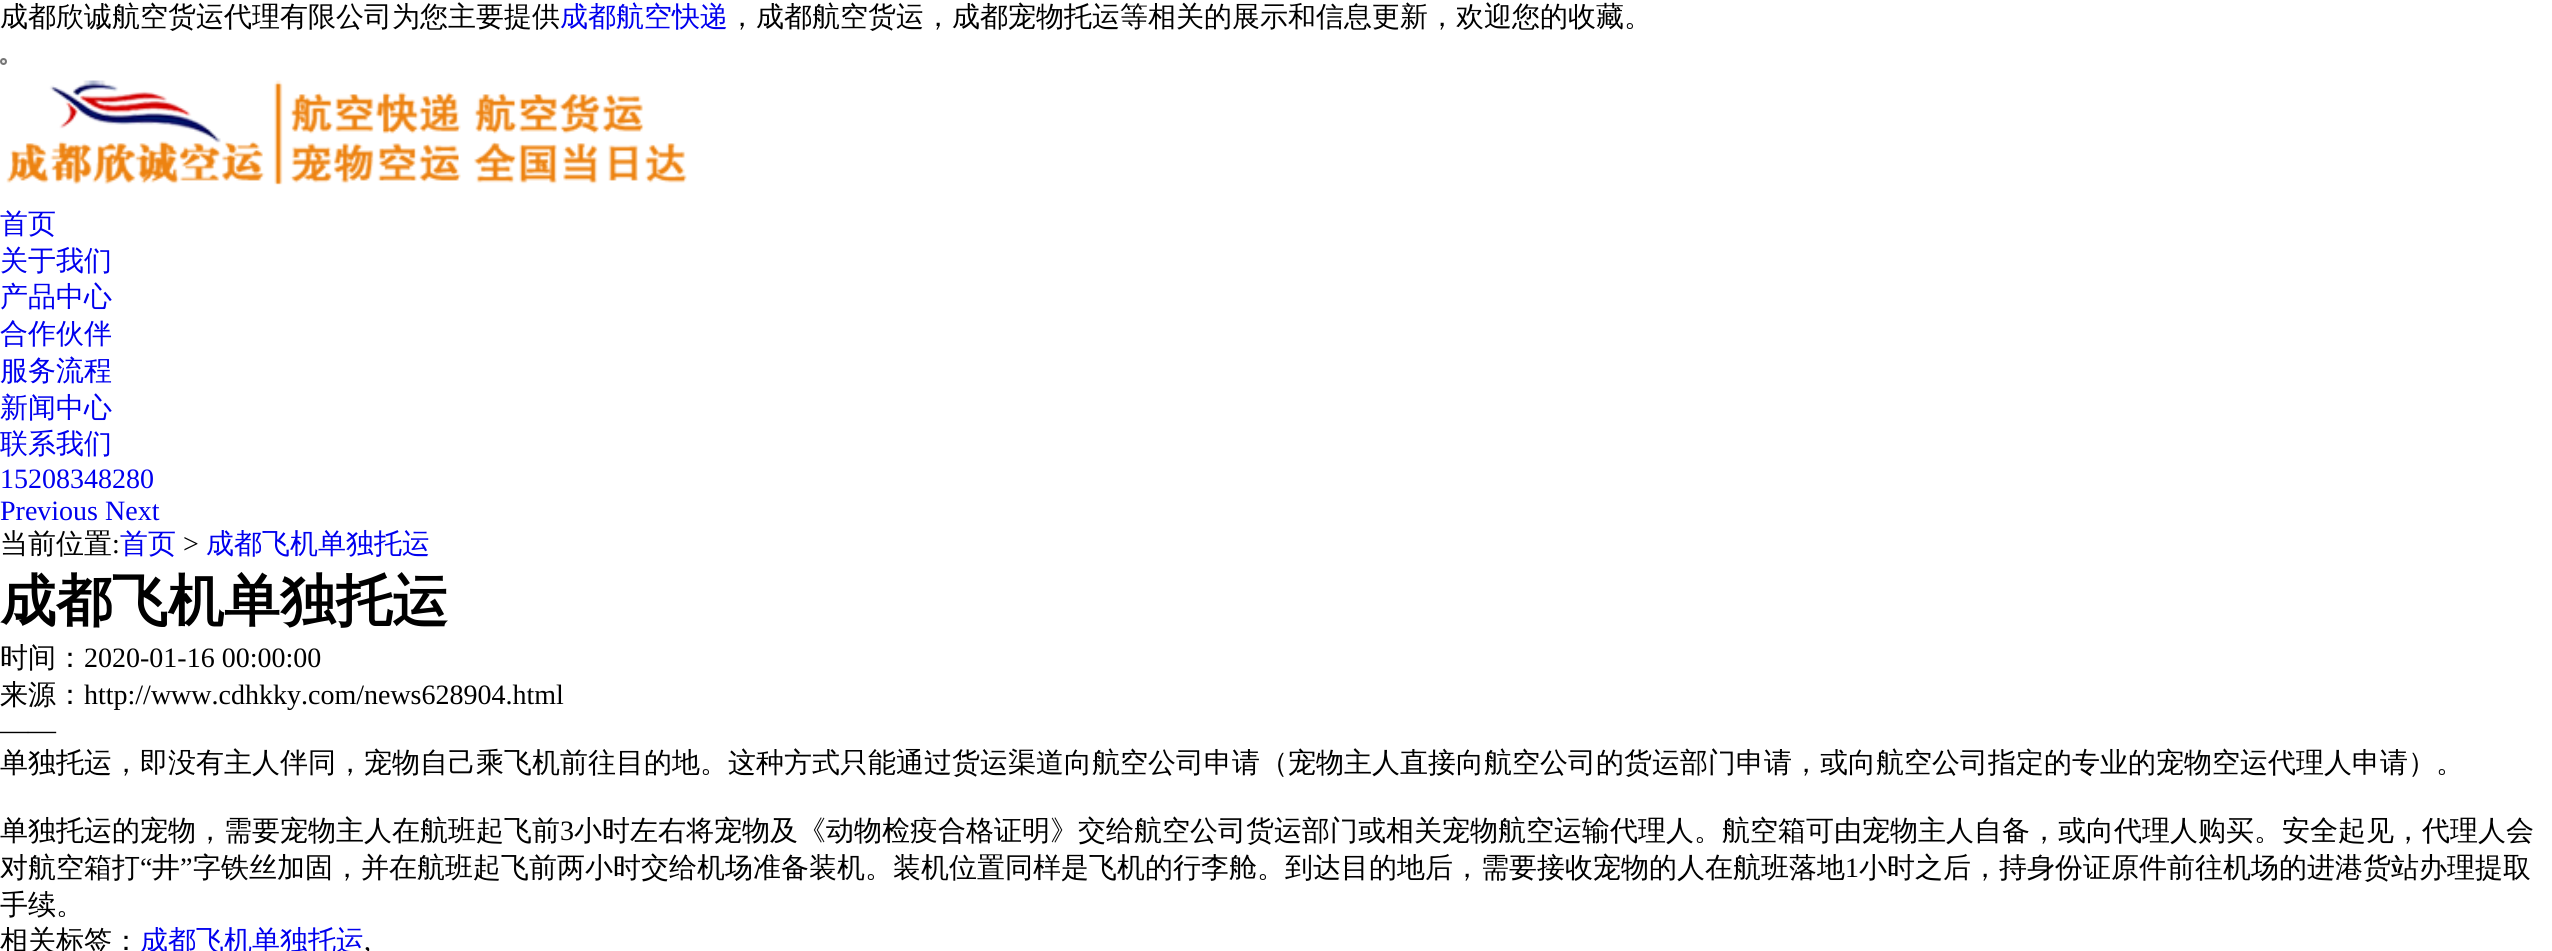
#include <cairo/cairo.h>
#include <math.h>
#include <stddef.h>

static cairo_t *cr;

static void use_color(int r, int g, int b) {
  cairo_set_source_rgb(cr, r / 255.0, g / 255.0, b / 255.0);
}

static void text(double x, double y, const char *s, const char *family, double size, int italic, int bold, int r, int g, int b) {
  cairo_select_font_face(cr, family, italic ? CAIRO_FONT_SLANT_ITALIC : CAIRO_FONT_SLANT_NORMAL,
    bold ? CAIRO_FONT_WEIGHT_BOLD : CAIRO_FONT_WEIGHT_NORMAL);
  cairo_set_font_size(cr, size);
  use_color(r, g, b);
  cairo_move_to(cr, x, y);
  cairo_show_text(cr, s);
}

static void picture(const char *path, double x, double y, double w, double h) {
  cairo_surface_t *image = cairo_image_surface_create_from_png(path);
  cairo_save(cr);
  cairo_set_source_surface(cr, image, x, y);
  cairo_rectangle(cr, x, y, w, h);
  cairo_fill(cr);
  cairo_restore(cr);
  cairo_surface_destroy(image);
}

static void draw(void) {
  use_color(255, 255, 255);
  cairo_paint(cr);
  use_color(239, 239, 239);
  cairo_arc(cr, 3.5, 61.5, 2.5, 0, 2 * M_PI);
  cairo_fill_preserve(cr);
  use_color(118, 118, 118);
  cairo_stroke(cr);
  picture("img_01.png", 6, 80, 681, 105);
  text(0, 26, "成都欣诚航空货运代理有限公司为您主要提供", "WenQuanYi Zen Hei Medium", 28, 0, 0, 0, 0, 0);
  text(560, 26, "成都航空快递", "WenQuanYi Zen Hei Medium", 28, 0, 0, 0, 0, 238);
  text(728, 26, "，成都航空货运，成都宠物托运等相关的展示和信息更新，欢迎您的收藏。", "WenQuanYi Zen Hei Medium", 28, 0, 0, 0, 0, 0);
  text(0, 233, "首页", "WenQuanYi Zen Hei Medium", 28, 0, 0, 0, 0, 238);
  text(0, 270, "关于我们", "WenQuanYi Zen Hei Medium", 28, 0, 0, 0, 0, 238);
  text(0, 306, "产品中心", "WenQuanYi Zen Hei Medium", 28, 0, 0, 0, 0, 238);
  text(0, 343, "合作伙伴", "WenQuanYi Zen Hei Medium", 28, 0, 0, 0, 0, 238);
  text(0, 380, "服务流程", "WenQuanYi Zen Hei Medium", 28, 0, 0, 0, 0, 238);
  text(0, 417, "新闻中心", "WenQuanYi Zen Hei Medium", 28, 0, 0, 0, 0, 238);
  text(0, 453, "联系我们", "WenQuanYi Zen Hei Medium", 28, 0, 0, 0, 0, 238);
  text(0, 488, "15208348280", "Liberation Serif", 28, 0, 0, 0, 0, 238);
  text(0, 520, "Previous Next", "Liberation Serif", 28, 0, 0, 0, 0, 238);
  text(0, 553, "当前位置", "WenQuanYi Zen Hei Medium", 28, 0, 0, 0, 0, 0);
  text(112, 553, ":", "Liberation Serif", 28, 0, 0, 0, 0, 0);
  text(120, 553, "首页", "WenQuanYi Zen Hei Medium", 28, 0, 0, 0, 0, 238);
  text(183, 553, ">", "Liberation Serif", 28, 0, 0, 0, 0, 0);
  text(206, 553, "成都飞机单独托运", "WenQuanYi Zen Hei Medium", 28, 0, 0, 0, 0, 238);
  text(0, 620, "成都飞机单独托运", "WenQuanYi Zen Hei", 56, 0, 1, 0, 0, 0);
  text(0, 667, "时间：", "WenQuanYi Zen Hei Medium", 28, 0, 0, 0, 0, 0);
  text(84, 667, "2020-01-16 00:00:00", "Liberation Serif", 28, 0, 0, 0, 0, 0);
  text(0, 704, "来源：", "WenQuanYi Zen Hei Medium", 28, 0, 0, 0, 0, 0);
  text(84, 704, "http://www.cdhkky.com/news628904.html", "Liberation Serif", 28, 0, 0, 0, 0, 0);
  text(0, 739, "——", "Liberation Serif", 28, 0, 0, 0, 0, 0);
  text(0, 772, "单独托运，即没有主人伴同，宠物自己乘飞机前往目的地。这种方式只能通过货运渠道向航空公司申请（宠物主人直接向航空公司的货运部门申请，或向航空公司指定的专业的宠物空运代理人申请）。", "WenQuanYi Zen Hei Medium", 28, 0, 0, 0, 0, 0);
  text(0, 840, "单独托运的宠物，需要宠物主人在航班起飞前", "WenQuanYi Zen Hei Medium", 28, 0, 0, 0, 0, 0);
  text(560, 840, "3", "Liberation Serif", 28, 0, 0, 0, 0, 0);
  text(574, 840, "小时左右将宠物及《动物检疫合格证明》交给航空公司货运部门或相关宠物航空运输代理人。航空箱可由宠物主人自备，或向代理人购买。安全起见，代理人会", "WenQuanYi Zen Hei Medium", 28, 0, 0, 0, 0, 0);
  text(0, 877, "对航空箱打", "WenQuanYi Zen Hei Medium", 28, 0, 0, 0, 0, 0);
  text(140, 877, "“", "Liberation Serif", 28, 0, 0, 0, 0, 0);
  text(152, 877, "井", "WenQuanYi Zen Hei Medium", 28, 0, 0, 0, 0, 0);
  text(180, 877, "”", "Liberation Serif", 28, 0, 0, 0, 0, 0);
  text(193, 877, "字铁丝加固，并在航班起飞前两小时交给机场准备装机。装机位置同样是飞机的行李舱。到达目的地后，需要接收宠物的人在航班落地", "WenQuanYi Zen Hei Medium", 28, 0, 0, 0, 0, 0);
  text(1845, 877, "1", "Liberation Serif", 28, 0, 0, 0, 0, 0);
  text(1859, 877, "小时之后，持身份证原件前往机场的进港货站办理提取", "WenQuanYi Zen Hei Medium", 28, 0, 0, 0, 0, 0);
  text(0, 914, "手续。", "WenQuanYi Zen Hei Medium", 28, 0, 0, 0, 0, 0);
  text(0, 950, "相关标签：", "WenQuanYi Zen Hei Medium", 28, 0, 0, 0, 0, 0);
  text(140, 950, "成都飞机单独托运", "WenQuanYi Zen Hei Medium", 28, 0, 0, 0, 0, 238);
  text(364, 950, ",", "Liberation Serif", 28, 0, 0, 0, 0, 0);
}

int main(void) {
  cairo_surface_t *surface = cairo_image_surface_create(CAIRO_FORMAT_RGB24, 2552, 951);
  cr = cairo_create(surface);
  cairo_font_options_t *options = cairo_font_options_create();
  cairo_font_options_set_hint_metrics(options, CAIRO_HINT_METRICS_OFF);
  cairo_font_options_set_hint_style(options, CAIRO_HINT_STYLE_NONE);
  cairo_set_font_options(cr, options);
  cairo_set_miter_limit(cr, 4);
  draw();
  cairo_surface_write_to_png(surface, "out.png");
  cairo_font_options_destroy(options);
  cairo_destroy(cr);
  cairo_surface_destroy(surface);
  return 0;
}
